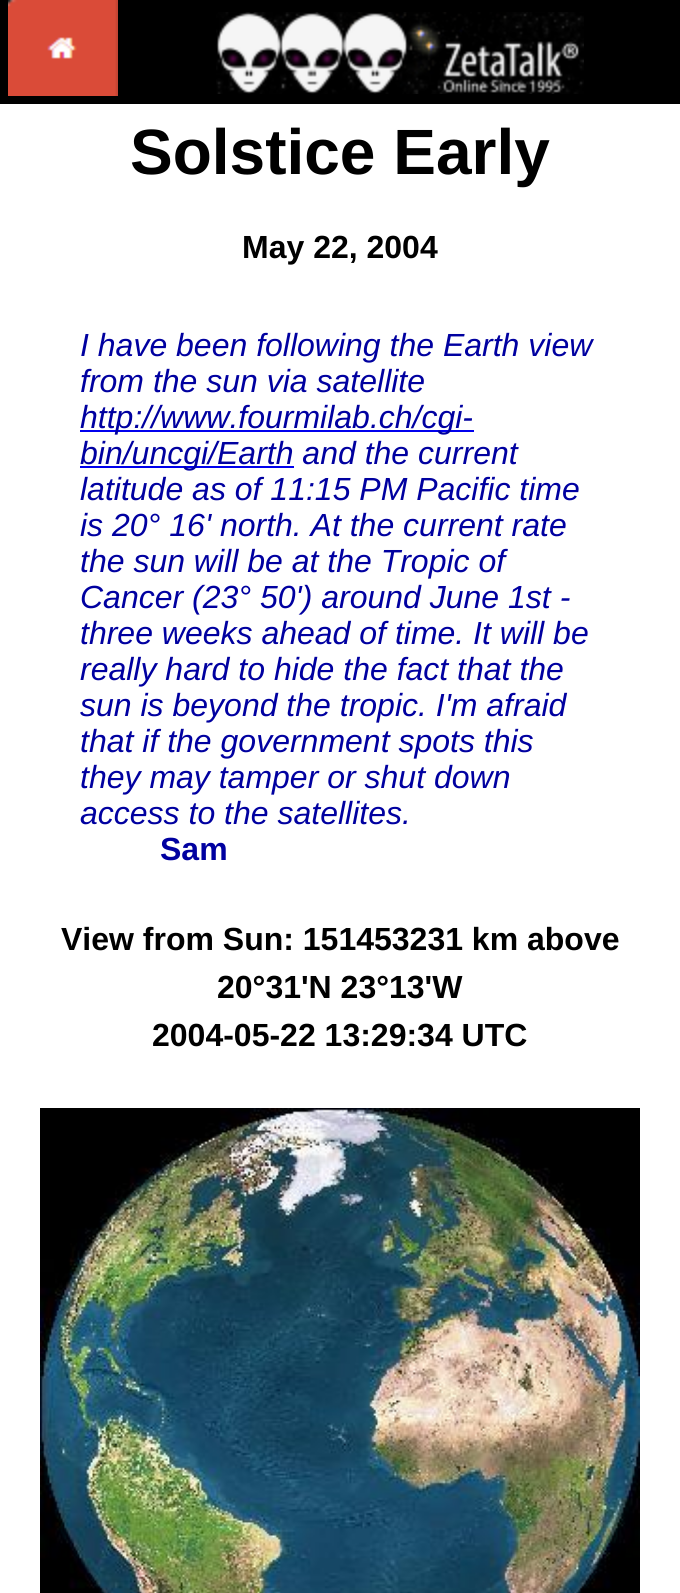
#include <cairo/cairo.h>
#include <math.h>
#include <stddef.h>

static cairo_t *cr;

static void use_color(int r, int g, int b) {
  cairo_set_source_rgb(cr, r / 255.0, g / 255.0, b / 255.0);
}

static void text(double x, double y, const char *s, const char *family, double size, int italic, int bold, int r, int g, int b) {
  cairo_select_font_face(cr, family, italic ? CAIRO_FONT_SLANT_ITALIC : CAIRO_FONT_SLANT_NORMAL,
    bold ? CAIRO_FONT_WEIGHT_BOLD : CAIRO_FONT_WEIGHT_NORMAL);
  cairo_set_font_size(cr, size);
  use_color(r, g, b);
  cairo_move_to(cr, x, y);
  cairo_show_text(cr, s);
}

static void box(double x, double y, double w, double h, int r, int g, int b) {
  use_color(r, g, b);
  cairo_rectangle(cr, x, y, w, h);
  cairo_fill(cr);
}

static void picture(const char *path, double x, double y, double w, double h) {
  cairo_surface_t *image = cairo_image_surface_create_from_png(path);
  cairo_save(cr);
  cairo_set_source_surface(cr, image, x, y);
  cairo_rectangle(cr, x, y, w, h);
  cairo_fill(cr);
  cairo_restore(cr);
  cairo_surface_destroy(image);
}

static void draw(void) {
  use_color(255, 255, 255);
  cairo_paint(cr);
  box(0, 0, 680, 104, 0, 0, 0);
  picture("img_01.png", 8, 0, 110, 96);
  picture("img_02.png", 216, 12, 368, 82);
  box(80, 430, 394, 2, 0, 0, 238);
  box(80, 466, 214, 2, 0, 0, 238);
  picture("img_03.png", 40, 1108, 600, 485);
  text(130, 174, "Solstice Early", "Liberation Sans", 64, 0, 1, 0, 0, 0);
  text(242, 258, "May 22, 2004", "Liberation Sans", 32, 0, 1, 0, 0, 0);
  text(80, 356, "I have been following the Earth view", "Liberation Sans", 32, 1, 0, 0, 0, 160);
  text(80, 392, "from the sun via satellite", "Liberation Sans", 32, 1, 0, 0, 0, 160);
  text(80, 428, "http://www.fourmilab.ch/cgi-", "Liberation Sans", 32, 1, 0, 0, 0, 160);
  text(80, 464, "bin/uncgi/Earth and the current", "Liberation Sans", 32, 1, 0, 0, 0, 160);
  text(80, 500, "latitude as of 11:15 PM Pacific time", "Liberation Sans", 32, 1, 0, 0, 0, 160);
  text(80, 536, "is 20° 16' north. At the current rate", "Liberation Sans", 32, 1, 0, 0, 0, 160);
  text(80, 572, "the sun will be at the Tropic of", "Liberation Sans", 32, 1, 0, 0, 0, 160);
  text(80, 608, "Cancer (23° 50') around June 1st -", "Liberation Sans", 32, 1, 0, 0, 0, 160);
  text(80, 644, "three weeks ahead of time. It will be", "Liberation Sans", 32, 1, 0, 0, 0, 160);
  text(80, 680, "really hard to hide the fact that the", "Liberation Sans", 32, 1, 0, 0, 0, 160);
  text(80, 716, "sun is beyond the tropic. I'm afraid", "Liberation Sans", 32, 1, 0, 0, 0, 160);
  text(80, 752, "that if the government spots this", "Liberation Sans", 32, 1, 0, 0, 0, 160);
  text(80, 788, "they may tamper or shut down", "Liberation Sans", 32, 1, 0, 0, 0, 160);
  text(80, 824, "access to the satellites.", "Liberation Sans", 32, 1, 0, 0, 0, 160);
  text(160, 860, "Sam", "Liberation Sans", 32, 0, 1, 0, 0, 160);
  text(61, 950, "View from Sun: 151453231 km above", "Liberation Sans", 32, 0, 1, 0, 0, 0);
  text(217, 998, "20°31'N 23°13'W", "Liberation Sans", 32, 0, 1, 0, 0, 0);
  text(152, 1046, "2004-05-22 13:29:34 UTC", "Liberation Sans", 32, 0, 1, 0, 0, 0);
}

int main(void) {
  cairo_surface_t *surface = cairo_image_surface_create(CAIRO_FORMAT_RGB24, 680, 1593);
  cr = cairo_create(surface);
  cairo_font_options_t *options = cairo_font_options_create();
  cairo_font_options_set_hint_metrics(options, CAIRO_HINT_METRICS_OFF);
  cairo_font_options_set_hint_style(options, CAIRO_HINT_STYLE_NONE);
  cairo_set_font_options(cr, options);
  cairo_set_miter_limit(cr, 4);
  draw();
  cairo_surface_write_to_png(surface, "out.png");
  cairo_font_options_destroy(options);
  cairo_destroy(cr);
  cairo_surface_destroy(surface);
  return 0;
}
